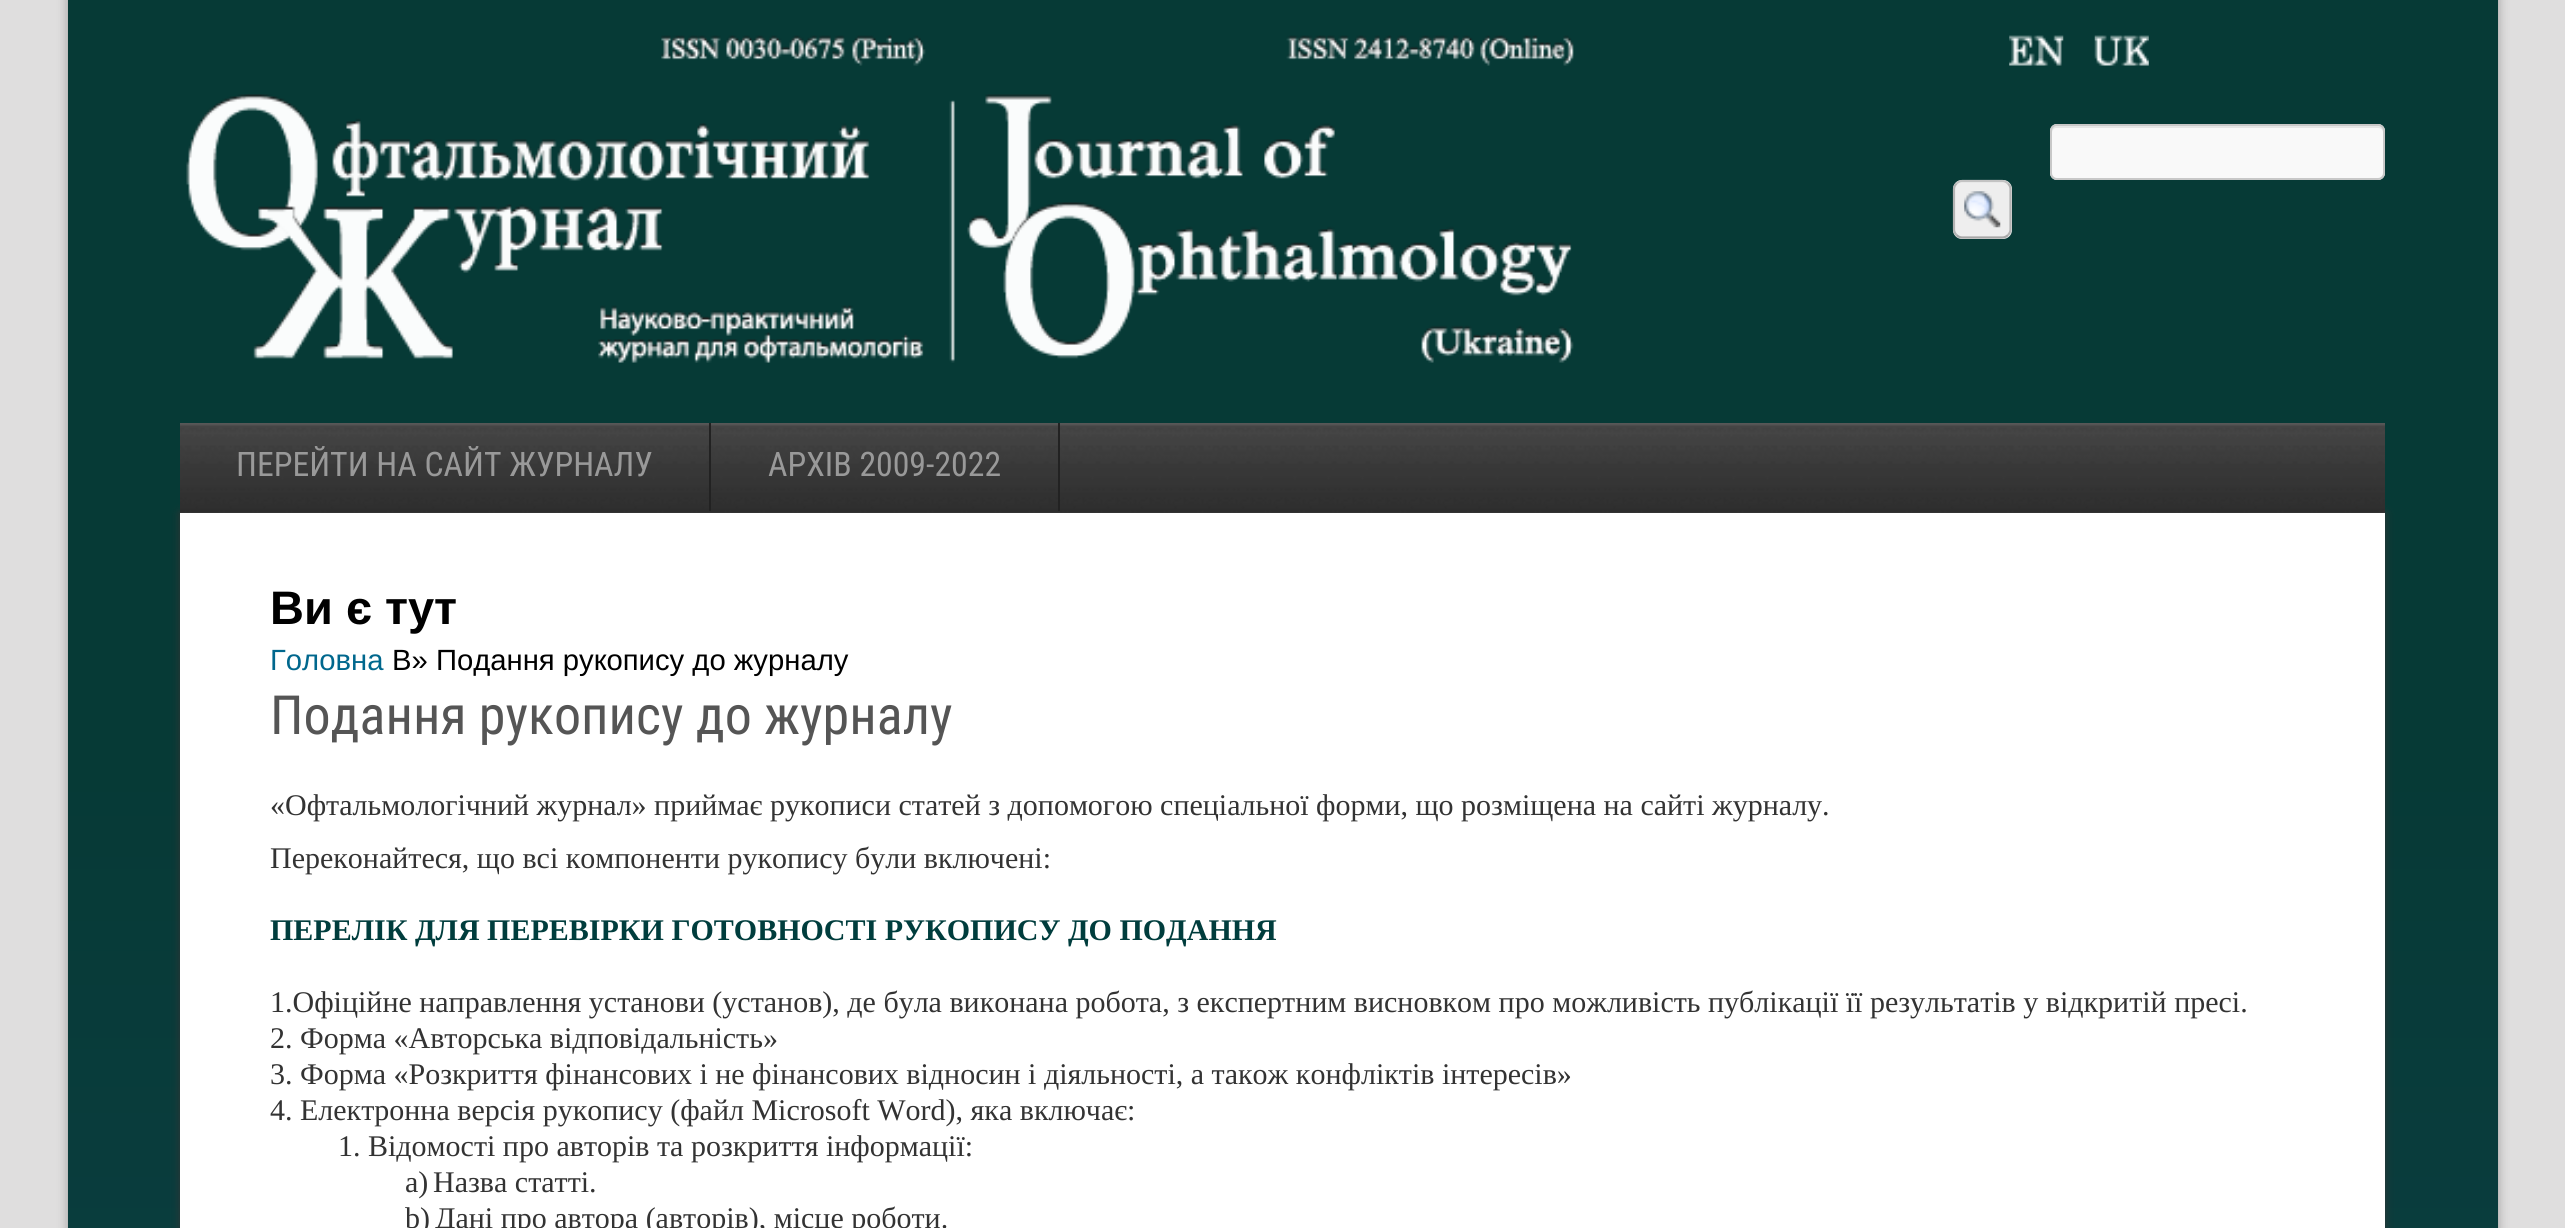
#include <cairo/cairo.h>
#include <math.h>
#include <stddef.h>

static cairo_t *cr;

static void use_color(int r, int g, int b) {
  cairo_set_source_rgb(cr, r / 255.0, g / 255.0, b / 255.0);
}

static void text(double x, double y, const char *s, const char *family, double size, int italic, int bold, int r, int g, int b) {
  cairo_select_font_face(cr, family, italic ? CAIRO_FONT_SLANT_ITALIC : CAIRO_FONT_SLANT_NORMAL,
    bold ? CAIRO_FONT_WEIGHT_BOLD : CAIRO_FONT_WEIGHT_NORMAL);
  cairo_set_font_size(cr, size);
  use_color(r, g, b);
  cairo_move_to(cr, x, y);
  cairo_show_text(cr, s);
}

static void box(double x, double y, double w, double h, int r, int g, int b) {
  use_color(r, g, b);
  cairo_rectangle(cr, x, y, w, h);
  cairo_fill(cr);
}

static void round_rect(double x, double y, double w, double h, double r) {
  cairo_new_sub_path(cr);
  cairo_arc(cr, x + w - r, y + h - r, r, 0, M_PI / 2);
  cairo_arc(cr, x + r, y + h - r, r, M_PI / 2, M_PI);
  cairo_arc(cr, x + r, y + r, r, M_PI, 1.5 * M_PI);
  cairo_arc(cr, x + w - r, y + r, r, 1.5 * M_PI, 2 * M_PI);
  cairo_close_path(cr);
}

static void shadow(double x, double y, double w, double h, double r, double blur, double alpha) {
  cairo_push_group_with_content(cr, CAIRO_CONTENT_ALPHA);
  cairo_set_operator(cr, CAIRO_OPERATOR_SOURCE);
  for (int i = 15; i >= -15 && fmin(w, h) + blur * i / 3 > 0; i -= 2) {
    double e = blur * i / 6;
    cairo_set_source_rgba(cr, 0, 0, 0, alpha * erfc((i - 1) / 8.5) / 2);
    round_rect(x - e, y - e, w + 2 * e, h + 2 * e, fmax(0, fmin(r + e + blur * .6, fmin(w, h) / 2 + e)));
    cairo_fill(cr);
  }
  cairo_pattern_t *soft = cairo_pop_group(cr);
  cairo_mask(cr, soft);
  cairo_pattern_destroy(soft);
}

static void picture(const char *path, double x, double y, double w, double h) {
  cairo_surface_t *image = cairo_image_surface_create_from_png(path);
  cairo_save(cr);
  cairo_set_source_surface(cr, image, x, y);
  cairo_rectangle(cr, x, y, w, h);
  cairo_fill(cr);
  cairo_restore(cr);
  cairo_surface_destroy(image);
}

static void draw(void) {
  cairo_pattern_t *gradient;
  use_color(223, 222, 222);
  cairo_paint(cr);
  use_color(0, 0, 0);
  shadow(68, -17, 2430, 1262, 0, 5.5, 0.3);
  gradient = cairo_pattern_create_linear(68, 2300, 68, -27);
  cairo_pattern_add_color_stop_rgba(gradient, 0.14, 0.059, 0.255, 0.286, 1);
  cairo_pattern_add_color_stop_rgba(gradient, 0.66, 0.024, 0.227, 0.212, 1);
  cairo_set_source(cr, gradient);
  cairo_pattern_destroy(gradient);
  cairo_rectangle(cr, 68, 0, 2430, 1228);
  cairo_fill(cr);
  picture("img_01.png", 186, 35, 1388, 328);
  picture("img_02.png", 2009, 35, 55, 31);
  picture("img_03.png", 2094, 35, 55, 31);
  use_color(249, 249, 249);
  round_rect(2050, 124, 335, 56, 7);
  cairo_fill(cr);
  use_color(230, 230, 230);
  cairo_new_path(cr);
  cairo_move_to(cr, 2056, 128);
  cairo_line_to(cr, 2378, 128);
  cairo_curve_to(cr, 2381, 128, 2383, 130, 2383, 133);
  cairo_line_to(cr, 2383, 131);
  cairo_curve_to(cr, 2383, 128, 2381, 126, 2378, 126);
  cairo_line_to(cr, 2057, 126);
  cairo_curve_to(cr, 2054, 126, 2052, 128, 2052, 131);
  cairo_line_to(cr, 2052, 133);
  cairo_curve_to(cr, 2052, 130, 2054, 128, 2056, 128);
  cairo_close_path(cr);
  cairo_fill(cr);
  round_rect(2051, 125, 333, 54, 6);
  use_color(200, 200, 200);
  cairo_stroke(cr);
  use_color(238, 238, 238);
  round_rect(1953, 180, 59, 59, 9);
  cairo_fill(cr);
  picture("img_04.png", 1964, 191, 37, 37);
  cairo_new_path(cr);
  cairo_move_to(cr, 1956.5, 183.5);
  cairo_curve_to(cr, 1958, 182, 1960, 181, 1962, 181);
  cairo_line_to(cr, 2002.5, 181);
  cairo_curve_to(cr, 2004.5, 181, 2006.5, 182, 2008, 183.5);
  use_color(195, 195, 195);
  cairo_set_line_width(cr, 2.2);
  cairo_stroke(cr);
  cairo_new_path(cr);
  cairo_move_to(cr, 2008, 183.5);
  cairo_curve_to(cr, 2009.5, 185, 2010.5, 187, 2010.5, 189);
  cairo_line_to(cr, 2010.5, 229.5);
  cairo_curve_to(cr, 2010.5, 231.5, 2009.5, 233.5, 2008, 235);
  use_color(179, 179, 179);
  cairo_stroke(cr);
  cairo_new_path(cr);
  cairo_move_to(cr, 2008, 235);
  cairo_curve_to(cr, 2006.5, 236.5, 2004.5, 237.5, 2002.5, 237.5);
  cairo_line_to(cr, 1962, 237.5);
  cairo_curve_to(cr, 1960, 237.5, 1958, 236.5, 1956.5, 235);
  use_color(167, 167, 167);
  cairo_stroke(cr);
  cairo_new_path(cr);
  cairo_move_to(cr, 1956.5, 235);
  cairo_curve_to(cr, 1955, 233.5, 1954, 231.5, 1954, 229.5);
  cairo_line_to(cr, 1954, 189);
  cairo_curve_to(cr, 1954, 187, 1955, 185, 1956.5, 183.5);
  use_color(179, 179, 179);
  cairo_stroke(cr);
  use_color(51, 51, 51);
  shadow(180, 513, 2205, 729, 0, 4.5, 1);
  picture("img_05.png", 180, 423, 2205, 90);
  box(709, 423, 2, 88, 34, 34, 34);
  box(1058, 423, 2, 88, 34, 34, 34);
  box(180, 513, 2205, 715, 255, 255, 255);
  text(236, 476, "ПЕРЕЙТИ НА САЙТ ЖУРНАЛУ", "Roboto Condensed", 33.75, 0, 0, 153, 153, 153);
  text(768, 476, "АРХІВ 2009-2022", "Roboto Condensed", 33.75, 0, 0, 153, 153, 153);
  text(270, 624, "Ви є тут", "Liberation Sans", 47, 0, 1, 0, 0, 0);
  text(270, 670, "Головна", "Liberation Sans", 29.25, 0, 0, 0, 103, 141);
  text(392, 670, "В» Подання рукопису до журналу", "Liberation Sans", 29.25, 0, 0, 0, 0, 0);
  text(270, 734, "Подання рукопису до журналу", "Roboto Condensed", 54, 0, 0, 85, 85, 85);
  text(270, 815, "«Офтальмологічний журнал» приймає рукописи статей з допомогою спеціальної форми, що розміщена на сайті журналу.", "Liberation Serif", 30, 0, 0, 51, 51, 51);
  text(270, 868, "Переконайтеся, що всі компоненти рукопису були включені:", "Liberation Serif", 30, 0, 0, 51, 51, 51);
  text(270, 940, "ПЕРЕЛІК ДЛЯ ПЕРЕВІРКИ ГОТОВНОСТІ РУКОПИСУ ДО ПОДАННЯ", "Liberation Serif", 30, 0, 1, 0, 61, 61);
  text(270, 1012, "1.Офіційне направлення установи (установ), де була виконана робота, з експертним висновком про можливість публікації її результатів у відкритій пресі.", "Liberation Serif", 30, 0, 0, 51, 51, 51);
  text(270, 1048, "2. Форма «Авторська відповідальність»", "Liberation Serif", 30, 0, 0, 51, 51, 51);
  text(270, 1084, "3. Форма «Розкриття фінансових і не фінансових відносин і діяльності, а також конфліктів інтересів»", "Liberation Serif", 30, 0, 0, 51, 51, 51);
  text(270, 1120, "4. Електронна версія рукопису (файл Microsoft Word), яка включає:", "Liberation Serif", 30, 0, 0, 51, 51, 51);
  text(338, 1156, "1. Відомості про авторів та розкриття інформації:", "Liberation Serif", 30, 0, 0, 51, 51, 51);
  text(405, 1192, "a)", "Liberation Serif", 30, 0, 0, 51, 51, 51);
  text(433, 1192, "Назва статті.", "Liberation Serif", 30, 0, 0, 51, 51, 51);
  text(405, 1228, "b)", "Liberation Serif", 30, 0, 0, 51, 51, 51);
  text(435, 1228, "Дані про автора (авторів), місце роботи.", "Liberation Serif", 30, 0, 0, 51, 51, 51);
}

int main(void) {
  cairo_surface_t *surface = cairo_image_surface_create(CAIRO_FORMAT_RGB24, 2565, 1228);
  cr = cairo_create(surface);
  cairo_font_options_t *options = cairo_font_options_create();
  cairo_font_options_set_hint_metrics(options, CAIRO_HINT_METRICS_OFF);
  cairo_font_options_set_hint_style(options, CAIRO_HINT_STYLE_NONE);
  cairo_set_font_options(cr, options);
  cairo_set_miter_limit(cr, 4);
  draw();
  cairo_surface_write_to_png(surface, "out.png");
  cairo_font_options_destroy(options);
  cairo_destroy(cr);
  cairo_surface_destroy(surface);
  return 0;
}
